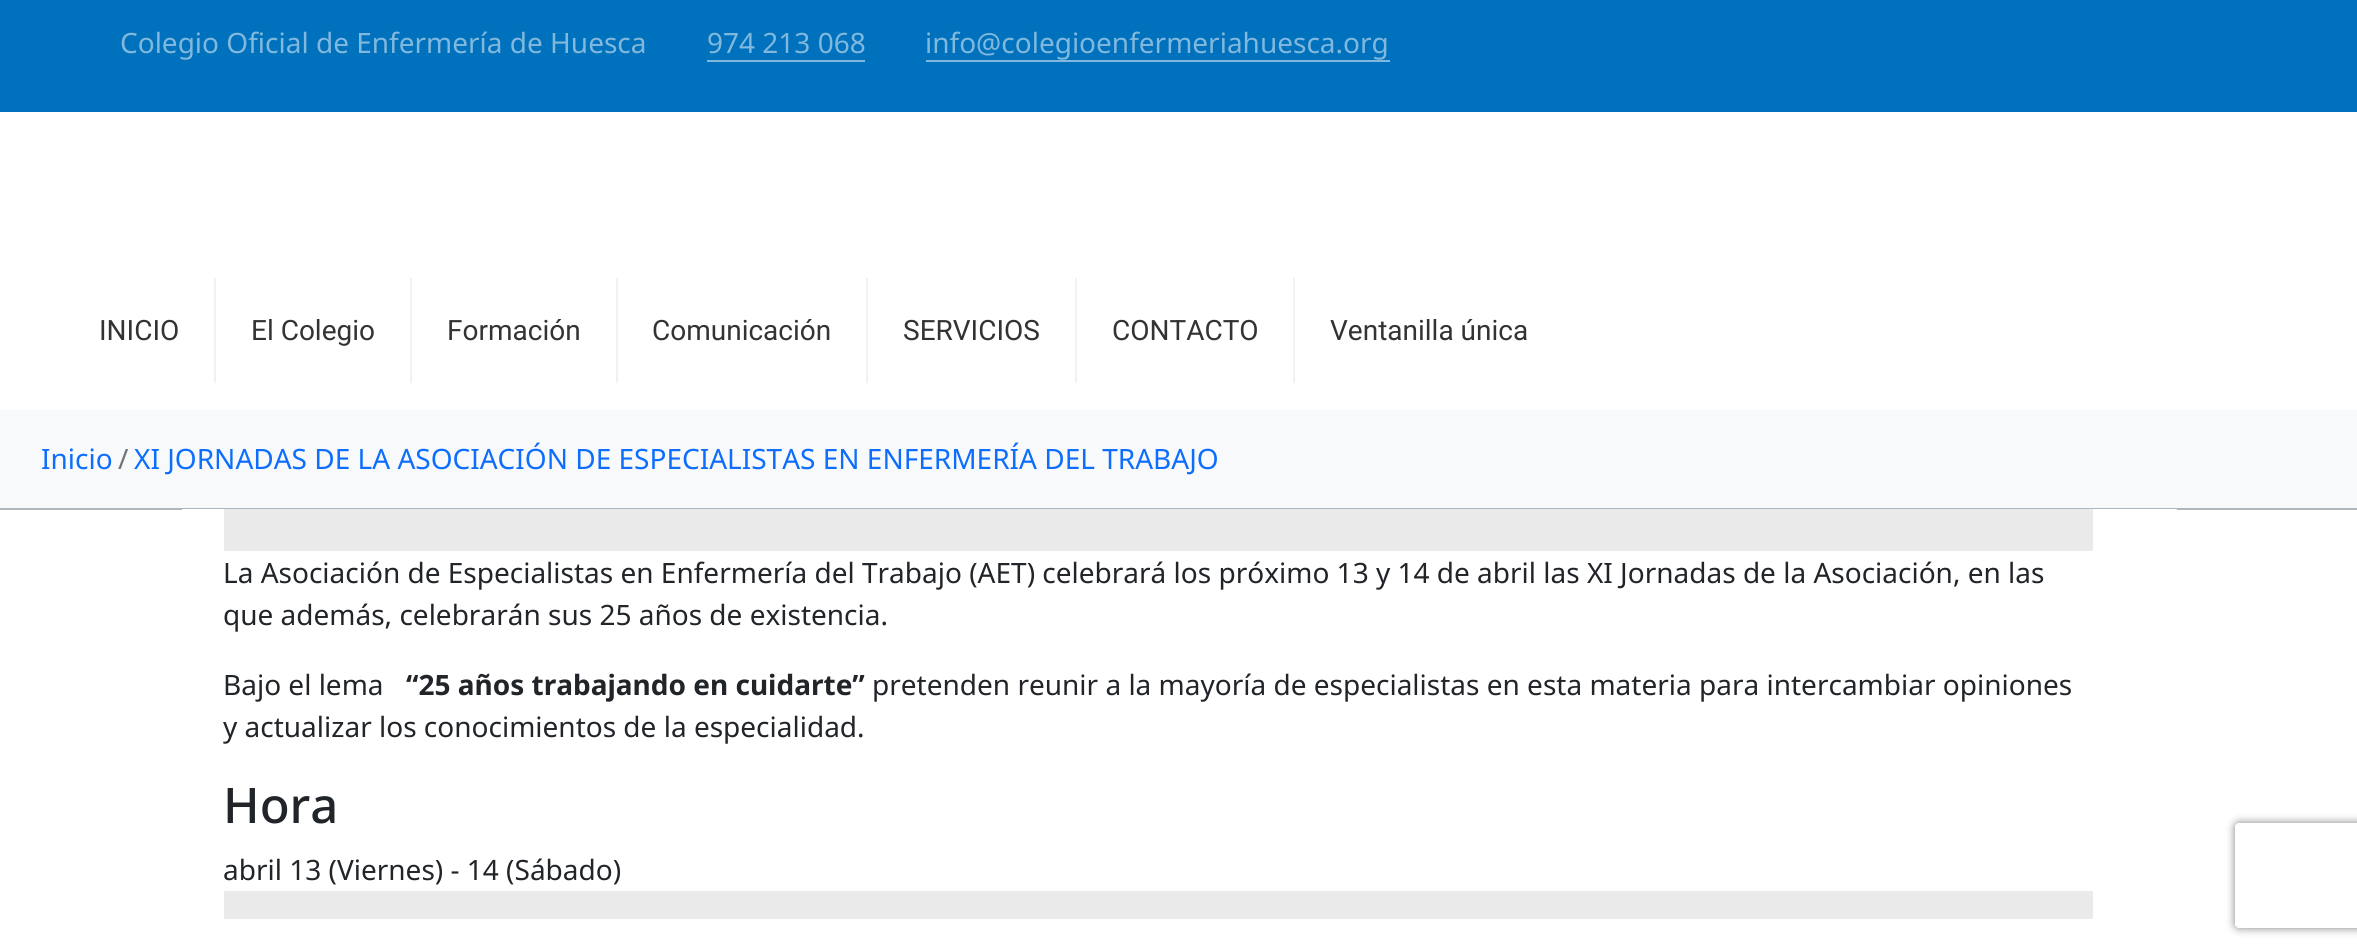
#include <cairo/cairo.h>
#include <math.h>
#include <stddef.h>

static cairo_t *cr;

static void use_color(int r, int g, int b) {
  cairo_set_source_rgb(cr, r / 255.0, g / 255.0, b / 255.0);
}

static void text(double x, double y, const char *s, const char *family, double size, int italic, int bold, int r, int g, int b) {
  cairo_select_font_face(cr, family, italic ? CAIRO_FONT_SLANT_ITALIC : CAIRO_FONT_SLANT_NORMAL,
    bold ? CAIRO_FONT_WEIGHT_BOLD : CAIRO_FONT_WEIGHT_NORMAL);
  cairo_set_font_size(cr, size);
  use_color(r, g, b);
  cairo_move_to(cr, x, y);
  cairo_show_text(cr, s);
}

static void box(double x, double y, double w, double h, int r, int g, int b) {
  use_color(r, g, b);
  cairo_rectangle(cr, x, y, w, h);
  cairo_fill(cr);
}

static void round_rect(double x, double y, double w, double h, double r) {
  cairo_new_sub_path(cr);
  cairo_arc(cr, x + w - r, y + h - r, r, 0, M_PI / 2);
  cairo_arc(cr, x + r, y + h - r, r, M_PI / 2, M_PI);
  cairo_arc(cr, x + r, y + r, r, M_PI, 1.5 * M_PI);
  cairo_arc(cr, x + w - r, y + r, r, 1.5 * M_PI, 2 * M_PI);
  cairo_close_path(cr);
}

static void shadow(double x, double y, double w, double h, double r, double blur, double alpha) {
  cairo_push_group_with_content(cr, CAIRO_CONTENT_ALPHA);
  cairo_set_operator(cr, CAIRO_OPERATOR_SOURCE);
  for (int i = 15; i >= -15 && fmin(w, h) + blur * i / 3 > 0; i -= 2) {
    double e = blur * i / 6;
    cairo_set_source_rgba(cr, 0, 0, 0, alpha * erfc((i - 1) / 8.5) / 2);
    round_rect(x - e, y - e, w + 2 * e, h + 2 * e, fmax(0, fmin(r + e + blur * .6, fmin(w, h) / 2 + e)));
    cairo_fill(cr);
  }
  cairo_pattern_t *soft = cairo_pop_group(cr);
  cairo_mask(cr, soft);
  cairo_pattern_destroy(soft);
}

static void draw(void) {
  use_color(255, 255, 255);
  cairo_paint(cr);
  box(0, 410, 2357, 98, 248, 249, 250);
  box(0, 508, 2357, 2, 173, 181, 189);
  box(0, 0, 2357, 112, 0, 113, 188);
  box(707, 60, 158, 2, 128, 184, 222);
  box(926, 60, 464, 2, 128, 184, 222);
  box(214, 278, 2, 105, 242, 242, 242);
  box(410, 278, 2, 105, 242, 242, 242);
  box(616, 278, 2, 105, 242, 242, 242);
  box(866, 278, 2, 105, 242, 242, 242);
  box(1075, 278, 2, 105, 242, 242, 242);
  box(1293, 278, 2, 105, 242, 242, 242);
  box(182, 509, 1995, 1, 255, 255, 255);
  box(224, 509, 1869, 410, 234, 234, 234);
  box(224, 551, 1869, 340, 255, 255, 255);
  cairo_save(cr);
  cairo_set_fill_rule(cr, CAIRO_FILL_RULE_EVEN_ODD);
  cairo_new_path(cr);
  cairo_move_to(cr, 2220, 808);
  cairo_line_to(cr, 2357, 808);
  cairo_line_to(cr, 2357, 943);
  cairo_line_to(cr, 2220, 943);
  cairo_close_path(cr);
  cairo_move_to(cr, 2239, 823);
  cairo_line_to(cr, 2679, 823);
  cairo_curve_to(cr, 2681, 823, 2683, 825, 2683, 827);
  cairo_line_to(cr, 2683, 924);
  cairo_curve_to(cr, 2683, 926, 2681, 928, 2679, 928);
  cairo_line_to(cr, 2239, 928);
  cairo_curve_to(cr, 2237, 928, 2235, 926, 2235, 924);
  cairo_line_to(cr, 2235, 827);
  cairo_curve_to(cr, 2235, 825, 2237, 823, 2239, 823);
  cairo_close_path(cr);
  cairo_clip(cr);
  use_color(128, 128, 128);
  shadow(2235, 823, 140, 105, 4, 4.5, 1);
  cairo_restore(cr);
  text(120, 53, "Colegio Oficial de Enfermería de Huesca", "Noto Sans", 28, 0, 0, 128, 184, 222);
  text(707, 53, "974 213 068", "Noto Sans", 28, 0, 0, 128, 184, 222);
  text(925, 53, "info@colegioenfermeriahuesca.org", "Noto Sans", 28, 0, 0, 128, 184, 222);
  text(99, 340, "INICIO", "Roboto", 28, 0, 0, 51, 51, 51);
  text(251, 340, "El Colegio", "Roboto", 28, 0, 0, 51, 51, 51);
  text(447, 340, "Formación", "Roboto", 28, 0, 0, 51, 51, 51);
  text(652, 340, "Comunicación", "Roboto", 28, 0, 0, 51, 51, 51);
  text(903, 340, "SERVICIOS", "Roboto", 28, 0, 0, 51, 51, 51);
  text(1112, 340, "CONTACTO", "Roboto", 28, 0, 0, 51, 51, 51);
  text(1330, 340, "Ventanilla única", "Roboto", 28, 0, 0, 51, 51, 51);
  text(41, 469, "Inicio", "Noto Sans", 28, 0, 0, 13, 110, 253);
  text(118, 469, "/", "Noto Sans", 28, 0, 0, 108, 117, 125);
  text(134, 469, "XI JORNADAS DE LA ASOCIACIÓN DE ESPECIALISTAS EN ENFERMERÍA DEL TRABAJO", "Noto Sans", 28, 0, 0, 13, 110, 253);
  text(223, 583, "La Asociación de Especialistas en Enfermería del Trabajo (AET) celebrará los próximo 13 y 14 de abril las XI Jornadas de la Asociación, en las", "Noto Sans", 28, 0, 0, 33, 37, 41);
  text(223, 625, "que además, celebrarán sus 25 años de existencia.", "Noto Sans", 28, 0, 0, 33, 37, 41);
  text(223, 695, "Bajo el lema", "Noto Sans", 28, 0, 0, 33, 37, 41);
  text(406, 695, "“25 años trabajando en cuidarte”", "Noto Sans", 28, 0, 1, 33, 37, 41);
  text(872, 695, "pretenden reunir a la mayoría de especialistas en esta materia para intercambiar opiniones", "Noto Sans", 28, 0, 0, 33, 37, 41);
  text(223, 737, "y actualizar los conocimientos de la especialidad.", "Noto Sans", 28, 0, 0, 33, 37, 41);
  text(223, 823, "Hora", "Noto Sans Medium", 49, 0, 0, 33, 37, 41);
  text(223, 880, "abril 13 (Viernes) - 14 (Sábado)", "Noto Sans", 28, 0, 0, 33, 37, 41);
}

int main(void) {
  cairo_surface_t *surface = cairo_image_surface_create(CAIRO_FORMAT_RGB24, 2357, 952);
  cr = cairo_create(surface);
  cairo_font_options_t *options = cairo_font_options_create();
  cairo_font_options_set_hint_metrics(options, CAIRO_HINT_METRICS_OFF);
  cairo_font_options_set_hint_style(options, CAIRO_HINT_STYLE_NONE);
  cairo_set_font_options(cr, options);
  cairo_set_miter_limit(cr, 4);
  draw();
  cairo_surface_write_to_png(surface, "out.png");
  cairo_font_options_destroy(options);
  cairo_destroy(cr);
  cairo_surface_destroy(surface);
  return 0;
}
